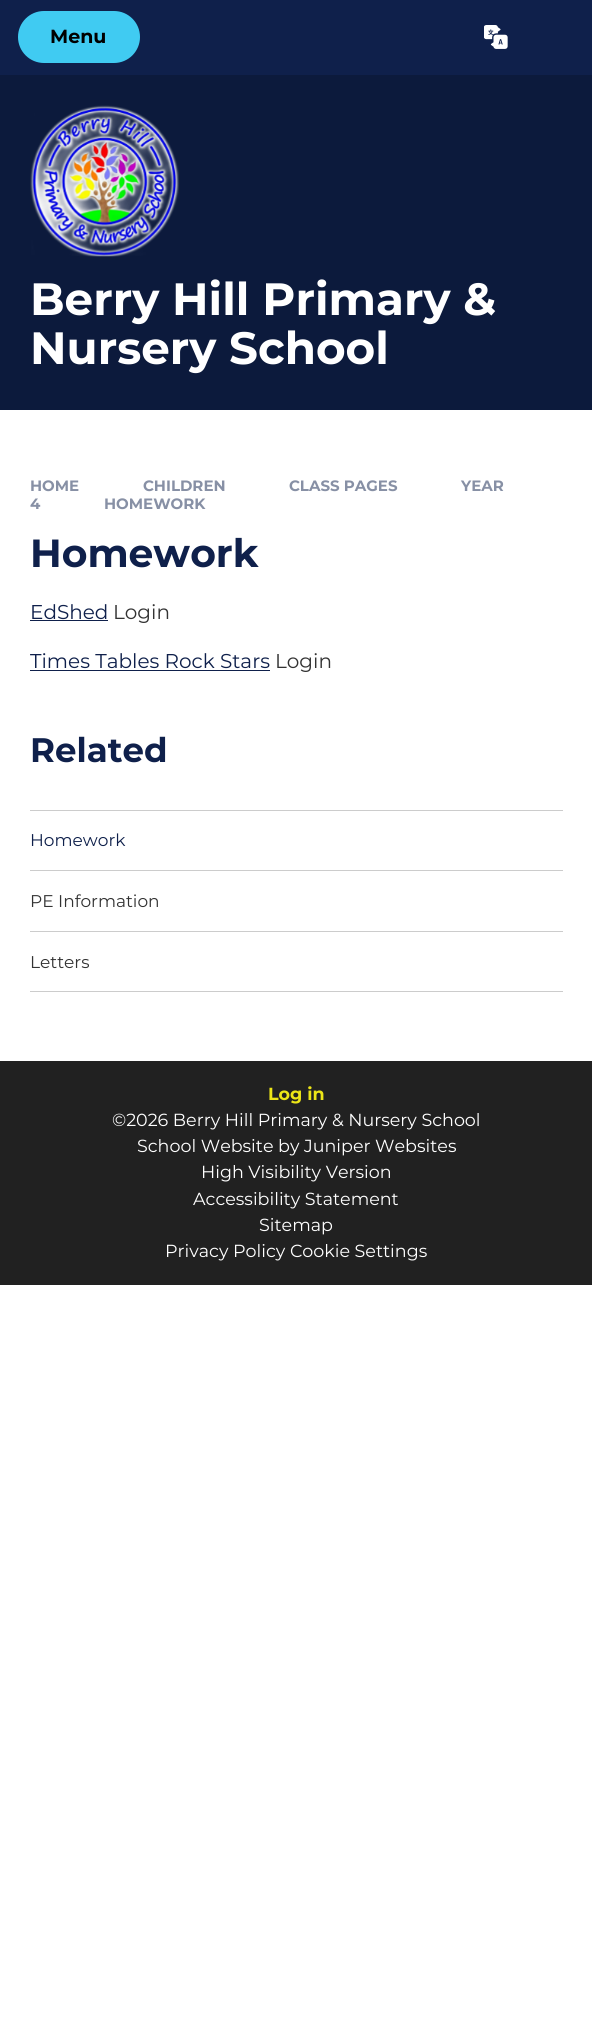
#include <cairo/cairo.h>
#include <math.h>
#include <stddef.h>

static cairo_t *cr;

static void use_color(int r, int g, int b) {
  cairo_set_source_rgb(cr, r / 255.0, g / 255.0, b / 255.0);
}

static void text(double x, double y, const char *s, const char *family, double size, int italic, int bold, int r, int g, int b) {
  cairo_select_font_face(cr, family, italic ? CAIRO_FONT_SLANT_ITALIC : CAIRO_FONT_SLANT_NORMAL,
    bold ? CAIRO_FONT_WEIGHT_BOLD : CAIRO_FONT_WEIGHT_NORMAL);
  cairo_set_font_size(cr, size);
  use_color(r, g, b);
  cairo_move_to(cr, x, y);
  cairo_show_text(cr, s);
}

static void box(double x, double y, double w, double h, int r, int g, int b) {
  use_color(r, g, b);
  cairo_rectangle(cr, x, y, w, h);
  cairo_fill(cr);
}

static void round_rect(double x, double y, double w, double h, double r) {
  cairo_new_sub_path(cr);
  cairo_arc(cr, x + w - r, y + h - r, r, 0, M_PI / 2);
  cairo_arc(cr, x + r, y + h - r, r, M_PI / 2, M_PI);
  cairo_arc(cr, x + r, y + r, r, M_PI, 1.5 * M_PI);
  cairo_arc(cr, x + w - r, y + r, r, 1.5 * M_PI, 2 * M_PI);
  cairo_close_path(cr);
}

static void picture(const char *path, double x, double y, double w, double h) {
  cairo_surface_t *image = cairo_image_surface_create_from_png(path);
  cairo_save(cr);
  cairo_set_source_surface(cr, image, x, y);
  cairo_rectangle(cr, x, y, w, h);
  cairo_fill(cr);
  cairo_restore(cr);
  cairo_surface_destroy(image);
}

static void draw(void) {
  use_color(255, 255, 255);
  cairo_paint(cr);
  box(0, 0, 592, 75, 15, 32, 75);
  use_color(64, 203, 242);
  round_rect(18, 11, 122, 52, 26);
  cairo_fill(cr);
  picture("img_01.png", 484, 25, 24, 24);
  box(0, 75, 592, 335, 12, 26, 60);
  picture("img_02.png", 30, 105, 149, 152);
  box(30, 620, 78, 1, 15, 32, 75);
  box(30, 670, 240, 1, 15, 32, 75);
  box(30, 810, 533, 1, 204, 204, 204);
  box(30, 870, 533, 1, 204, 204, 204);
  box(30, 931, 533, 1, 204, 204, 204);
  box(30, 991, 533, 1, 204, 204, 204);
  box(0, 1061, 592, 224, 33, 33, 33);
  text(50, 43, "Menu", "Montserrat", 19, 0, 1, 0, 0, 0);
  text(30, 315, "Berry Hill Primary &", "Montserrat", 45.25, 0, 1, 255, 255, 255);
  text(30, 364, "Nursery School", "Montserrat", 45.25, 0, 1, 255, 255, 255);
  text(30, 491, "HOME", "Montserrat", 15, 0, 1, 135, 144, 165);
  text(143, 491, "CHILDREN", "Montserrat", 15, 0, 1, 135, 144, 165);
  text(289, 491, "CLASS PAGES", "Montserrat", 15, 0, 1, 135, 144, 165);
  text(461, 491, "YEAR", "Montserrat", 15, 0, 1, 135, 144, 165);
  text(30, 509, "4", "Montserrat", 15, 0, 1, 135, 144, 165);
  text(104, 509, "HOMEWORK", "Montserrat", 15, 0, 1, 135, 144, 165);
  text(30, 567, "Homework", "Montserrat", 39.25, 0, 1, 15, 32, 75);
  text(30, 619, "EdShed", "Montserrat", 20, 0, 0, 15, 32, 75);
  text(113, 619, "Login", "Montserrat", 20, 0, 0, 51, 51, 51);
  text(30, 668, "Times Tables Rock Stars", "Montserrat", 20, 0, 0, 15, 32, 75);
  text(275, 668, "Login", "Montserrat", 20, 0, 0, 51, 51, 51);
  text(30, 762, "Related", "Montserrat", 34, 0, 1, 15, 32, 75);
  text(30, 846, "Homework", "Montserrat", 17, 0, 0, 15, 32, 75);
  text(30, 907, "PE Information", "Montserrat", 17, 0, 0, 51, 51, 51);
  text(30, 968, "Letters", "Montserrat", 17, 0, 0, 51, 51, 51);
  text(268, 1100, "Log in", "Montserrat", 17.5, 0, 1, 236, 229, 23);
  text(112, 1126, "©2026 Berry Hill Primary & Nursery School", "Montserrat", 17.5, 0, 0, 255, 255, 255);
  text(137, 1152, "School Website by Juniper Websites", "Montserrat", 17.5, 0, 0, 255, 255, 255);
  text(201, 1178, "High Visibility Version", "Montserrat", 17.5, 0, 0, 255, 255, 255);
  text(193, 1205, "Accessibility Statement", "Montserrat", 17.5, 0, 0, 255, 255, 255);
  text(259, 1231, "Sitemap", "Montserrat", 17.5, 0, 0, 255, 255, 255);
  text(165, 1257, "Privacy Policy Cookie Settings", "Montserrat", 17.5, 0, 0, 255, 255, 255);
}

int main(void) {
  cairo_surface_t *surface = cairo_image_surface_create(CAIRO_FORMAT_RGB24, 592, 2021);
  cr = cairo_create(surface);
  cairo_font_options_t *options = cairo_font_options_create();
  cairo_font_options_set_hint_metrics(options, CAIRO_HINT_METRICS_OFF);
  cairo_font_options_set_hint_style(options, CAIRO_HINT_STYLE_NONE);
  cairo_set_font_options(cr, options);
  cairo_set_miter_limit(cr, 4);
  draw();
  cairo_surface_write_to_png(surface, "out.png");
  cairo_font_options_destroy(options);
  cairo_destroy(cr);
  cairo_surface_destroy(surface);
  return 0;
}
